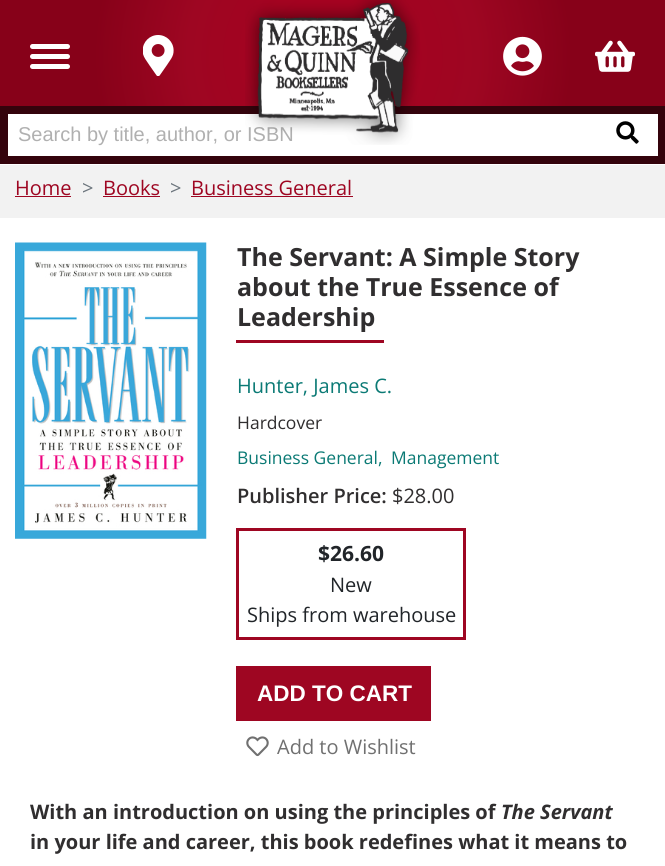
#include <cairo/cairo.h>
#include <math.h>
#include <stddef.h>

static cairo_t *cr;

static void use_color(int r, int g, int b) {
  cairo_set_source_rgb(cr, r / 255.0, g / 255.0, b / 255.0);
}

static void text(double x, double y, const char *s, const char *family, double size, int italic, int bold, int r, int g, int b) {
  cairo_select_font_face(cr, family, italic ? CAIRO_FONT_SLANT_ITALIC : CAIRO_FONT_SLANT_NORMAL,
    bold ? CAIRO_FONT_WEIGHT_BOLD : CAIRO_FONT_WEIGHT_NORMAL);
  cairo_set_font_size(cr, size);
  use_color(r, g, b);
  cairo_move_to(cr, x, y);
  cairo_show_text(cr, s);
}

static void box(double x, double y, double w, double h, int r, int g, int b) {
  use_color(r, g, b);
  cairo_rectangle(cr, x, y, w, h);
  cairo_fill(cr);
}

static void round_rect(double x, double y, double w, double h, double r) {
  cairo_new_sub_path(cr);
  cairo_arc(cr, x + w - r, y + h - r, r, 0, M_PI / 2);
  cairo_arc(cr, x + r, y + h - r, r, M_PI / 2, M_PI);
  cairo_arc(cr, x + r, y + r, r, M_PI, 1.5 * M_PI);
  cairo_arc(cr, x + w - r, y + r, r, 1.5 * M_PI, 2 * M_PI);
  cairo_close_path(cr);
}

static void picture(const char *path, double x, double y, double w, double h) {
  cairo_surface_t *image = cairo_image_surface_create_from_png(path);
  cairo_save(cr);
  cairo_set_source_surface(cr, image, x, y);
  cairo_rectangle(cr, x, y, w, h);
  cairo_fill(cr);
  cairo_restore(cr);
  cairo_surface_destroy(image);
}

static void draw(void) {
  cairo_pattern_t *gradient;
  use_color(255, 255, 255);
  cairo_paint(cr);
  gradient = cairo_pattern_create_radial(333, 56, 0, 333, 56, 337);
  cairo_pattern_add_color_stop_rgba(gradient, 0.17, 0.643, 0.008, 0.125, 1);
  cairo_pattern_add_color_stop_rgba(gradient, 0.43, 0.62, 0.024, 0.133, 1);
  cairo_pattern_add_color_stop_rgba(gradient, 0.71, 0.529, 0.004, 0.098, 1);
  cairo_pattern_add_color_stop_rgba(gradient, 0.95, 0.529, 0.004, 0.098, 1);
  cairo_set_source(cr, gradient);
  cairo_pattern_destroy(gradient);
  cairo_rectangle(cr, 0, 0, 665, 106);
  cairo_fill(cr);
  use_color(255, 255, 255);
  round_rect(30, 44, 40, 5, 2.5);
  cairo_fill(cr);
  round_rect(30, 54, 40, 5, 2.5);
  cairo_fill(cr);
  round_rect(30, 64, 40, 5, 2.5);
  cairo_fill(cr);
  picture("img_01.png", 143, 35, 31, 41);
  picture("img_03.png", 503, 36, 39, 40);
  picture("img_04.png", 595, 40, 40, 32);
  box(0, 106, 665, 58, 52, 3, 12);
  box(8, 114, 650, 42, 255, 255, 255);
  picture("img_05.png", 616, 121, 23, 23);
  box(0, 165, 665, 53, 242, 242, 242);
  box(15, 196, 56, 1, 158, 6, 34);
  box(103, 196, 57, 1, 158, 6, 34);
  box(191, 196, 162, 1, 158, 6, 34);
  picture("img_06.png", 15, 242, 192, 297);
  box(236, 340, 148, 3, 158, 6, 34);
  cairo_rectangle(cr, 237.5, 529.5, 227, 109);
  cairo_set_line_width(cr, 3);
  cairo_stroke(cr);
  box(236, 666, 195, 55, 158, 6, 34);
  picture("img_07.png", 246, 736, 23, 21);
  text(18, 141, "Search by title, author, or ISBN", "Liberation Sans", 20, 0, 0, 176, 176, 176);
  picture("img_02.png", 245, 0, 175, 145);
  text(15, 195, "Home", "Open Sans", 20, 0, 0, 158, 6, 34);
  text(82, 195, ">", "Open Sans", 20, 0, 0, 108, 117, 125);
  text(103, 195, "Books", "Open Sans", 20, 0, 0, 158, 6, 34);
  text(170, 195, ">", "Open Sans", 20, 0, 0, 108, 117, 125);
  text(191, 195, "Business General", "Open Sans", 20, 0, 0, 158, 6, 34);
  text(237, 266, "The Servant: A Simple Story", "Open Sans", 25, 0, 1, 48, 46, 47);
  text(237, 296, "about the True Essence of", "Open Sans", 25, 0, 1, 48, 46, 47);
  text(237, 326, "Leadership", "Open Sans", 25, 0, 1, 48, 46, 47);
  text(237, 393, "Hunter, James C.", "Open Sans", 20, 0, 0, 11, 122, 117);
  text(237, 429, "Hardcover", "Open Sans", 17.5, 0, 0, 48, 46, 47);
  text(237, 464, "Business General,", "Open Sans", 17.5, 0, 0, 11, 122, 117);
  text(391, 464, "Management", "Open Sans", 17.5, 0, 0, 11, 122, 117);
  text(237, 503, "Publisher Price:", "Open Sans SemiBold", 20, 0, 0, 48, 46, 47);
  text(392, 503, "$28.00", "Open Sans", 20, 0, 0, 48, 46, 47);
  text(318, 561, "$26.60", "Open Sans", 21, 0, 1, 33, 37, 41);
  text(330, 592, "New", "Open Sans", 20, 0, 0, 33, 37, 41);
  text(247, 622, "Ships from warehouse", "Open Sans", 20, 0, 0, 33, 37, 41);
  text(257, 701, "ADD TO CART", "Liberation Sans", 22.5, 0, 1, 255, 255, 255);
  text(277, 754, "Add to Wishlist", "Open Sans", 20, 0, 0, 112, 112, 112);
  text(30, 819, "With an introduction on using the principles of", "Open Sans", 20, 0, 1, 48, 46, 47);
  text(501, 819, "The Servant", "Open Sans", 20, 1, 1, 48, 46, 47);
  text(30, 849, "in your life and career, this book redefines what it means to", "Open Sans", 20, 0, 1, 48, 46, 47);
}

int main(void) {
  cairo_surface_t *surface = cairo_image_surface_create(CAIRO_FORMAT_RGB24, 665, 866);
  cr = cairo_create(surface);
  cairo_font_options_t *options = cairo_font_options_create();
  cairo_font_options_set_hint_metrics(options, CAIRO_HINT_METRICS_OFF);
  cairo_font_options_set_hint_style(options, CAIRO_HINT_STYLE_NONE);
  cairo_set_font_options(cr, options);
  cairo_set_miter_limit(cr, 4);
  draw();
  cairo_surface_write_to_png(surface, "out.png");
  cairo_font_options_destroy(options);
  cairo_destroy(cr);
  cairo_surface_destroy(surface);
  return 0;
}
